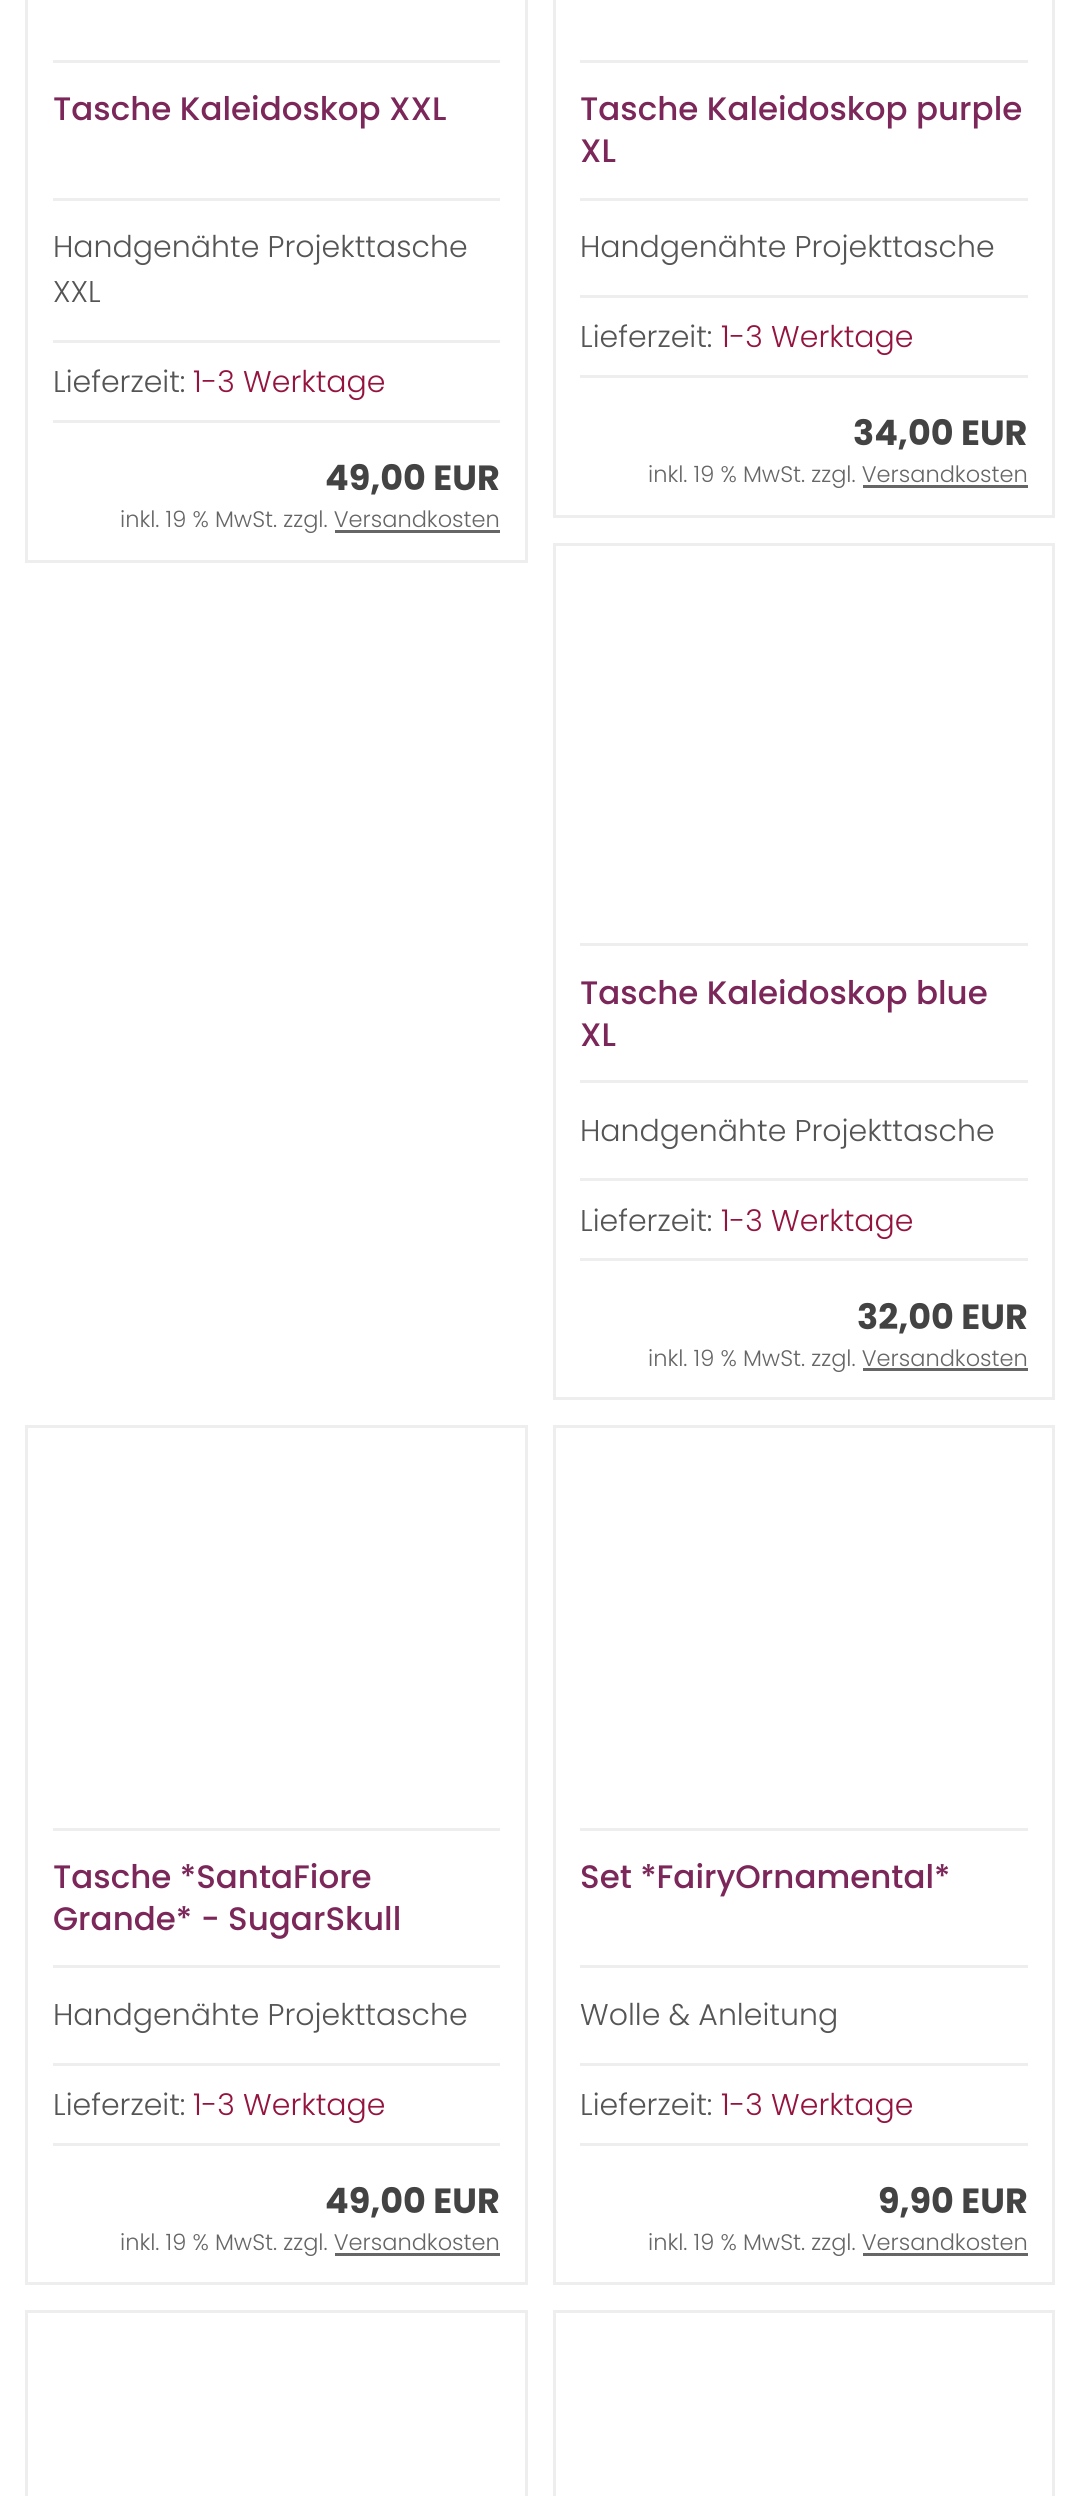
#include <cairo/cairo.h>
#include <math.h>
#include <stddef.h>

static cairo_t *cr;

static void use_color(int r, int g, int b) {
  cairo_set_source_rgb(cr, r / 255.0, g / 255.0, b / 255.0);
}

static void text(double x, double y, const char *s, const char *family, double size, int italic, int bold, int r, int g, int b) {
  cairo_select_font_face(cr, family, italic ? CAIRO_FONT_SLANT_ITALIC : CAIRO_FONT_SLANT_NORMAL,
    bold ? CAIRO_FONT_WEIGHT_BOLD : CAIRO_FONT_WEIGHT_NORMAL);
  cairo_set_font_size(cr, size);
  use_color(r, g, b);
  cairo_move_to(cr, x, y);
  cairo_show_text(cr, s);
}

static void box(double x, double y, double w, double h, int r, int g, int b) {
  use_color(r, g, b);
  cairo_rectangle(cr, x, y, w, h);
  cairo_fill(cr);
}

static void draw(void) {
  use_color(255, 255, 255);
  cairo_paint(cr);
  cairo_rectangle(cr, 26.5, -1.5, 500, 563);
  use_color(238, 238, 238);
  cairo_set_line_width(cr, 3);
  cairo_stroke(cr);
  box(53, 60, 447, 3, 238, 238, 238);
  box(53, 198, 447, 3, 238, 238, 238);
  box(53, 340, 447, 3, 238, 238, 238);
  box(53, 420, 447, 3, 238, 238, 238);
  box(335, 530, 165, 3, 102, 102, 102);
  cairo_rectangle(cr, 554.5, -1.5, 499, 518);
  use_color(238, 238, 238);
  cairo_stroke(cr);
  box(580, 60, 448, 3, 238, 238, 238);
  box(580, 198, 448, 3, 238, 238, 238);
  box(580, 295, 448, 3, 238, 238, 238);
  box(580, 375, 448, 3, 238, 238, 238);
  box(863, 485, 165, 3, 102, 102, 102);
  cairo_rectangle(cr, 554.5, 544.5, 499, 854);
  use_color(238, 238, 238);
  cairo_stroke(cr);
  box(580, 943, 448, 3, 238, 238, 238);
  box(580, 1080, 448, 3, 238, 238, 238);
  box(580, 1178, 448, 3, 238, 238, 238);
  box(580, 1258, 448, 3, 238, 238, 238);
  box(863, 1368, 165, 3, 102, 102, 102);
  cairo_rectangle(cr, 26.5, 1426.5, 500, 857);
  use_color(238, 238, 238);
  cairo_stroke(cr);
  box(53, 1828, 447, 3, 238, 238, 238);
  box(53, 1965, 447, 3, 238, 238, 238);
  box(53, 2063, 447, 3, 238, 238, 238);
  box(53, 2143, 447, 3, 238, 238, 238);
  box(335, 2253, 165, 3, 102, 102, 102);
  cairo_rectangle(cr, 554.5, 1426.5, 499, 857);
  use_color(238, 238, 238);
  cairo_stroke(cr);
  box(580, 1828, 448, 3, 238, 238, 238);
  box(580, 1965, 448, 3, 238, 238, 238);
  box(580, 2063, 448, 3, 238, 238, 238);
  box(580, 2143, 448, 3, 238, 238, 238);
  box(863, 2253, 165, 3, 102, 102, 102);
  cairo_rectangle(cr, 26.5, 2311.5, 500, 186);
  use_color(238, 238, 238);
  cairo_stroke(cr);
  cairo_rectangle(cr, 554.5, 2311.5, 499, 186);
  cairo_stroke(cr);
  text(53, 120, "Tasche Kaleidoskop XXL", "Poppins Medium", 32.5, 0, 0, 124, 39, 89);
  text(53, 257, "Handgenähte Projekttasche", "Poppins Light", 30, 0, 0, 85, 85, 85);
  text(53, 302, "XXL", "Poppins Light", 30, 0, 0, 85, 85, 85);
  text(53, 392, "Lieferzeit:", "Poppins Light", 30, 0, 0, 85, 85, 85);
  text(193, 392, "1-3 Werktage", "Poppins Light", 30, 0, 0, 148, 20, 62);
  text(325, 490, "49,00 EUR", "Poppins", 35, 0, 1, 67, 67, 67);
  text(120, 527, "inkl. 19 % MwSt. zzgl. Versandkosten", "Poppins Light", 22.5, 0, 0, 102, 102, 102);
  text(580, 120, "Tasche Kaleidoskop purple", "Poppins Medium", 32.5, 0, 0, 124, 39, 89);
  text(580, 162, "XL", "Poppins Medium", 32.5, 0, 0, 124, 39, 89);
  text(580, 257, "Handgenähte Projekttasche", "Poppins Light", 30, 0, 0, 85, 85, 85);
  text(580, 347, "Lieferzeit:", "Poppins Light", 30, 0, 0, 85, 85, 85);
  text(721, 347, "1-3 Werktage", "Poppins Light", 30, 0, 0, 148, 20, 62);
  text(853, 445, "34,00 EUR", "Poppins", 35, 0, 1, 67, 67, 67);
  text(648, 482, "inkl. 19 % MwSt. zzgl. Versandkosten", "Poppins Light", 22.5, 0, 0, 102, 102, 102);
  text(580, 1004, "Tasche Kaleidoskop blue", "Poppins Medium", 32.5, 0, 0, 124, 39, 89);
  text(580, 1046, "XL", "Poppins Medium", 32.5, 0, 0, 124, 39, 89);
  text(580, 1141, "Handgenähte Projekttasche", "Poppins Light", 30, 0, 0, 85, 85, 85);
  text(580, 1231, "Lieferzeit:", "Poppins Light", 30, 0, 0, 85, 85, 85);
  text(721, 1231, "1-3 Werktage", "Poppins Light", 30, 0, 0, 148, 20, 62);
  text(857, 1329, "32,00 EUR", "Poppins", 35, 0, 1, 67, 67, 67);
  text(648, 1366, "inkl. 19 % MwSt. zzgl. Versandkosten", "Poppins Light", 22.5, 0, 0, 102, 102, 102);
  text(53, 1888, "Tasche *SantaFiore", "Poppins Medium", 32.5, 0, 0, 124, 39, 89);
  text(53, 1930, "Grande* - SugarSkull", "Poppins Medium", 32.5, 0, 0, 124, 39, 89);
  text(53, 2025, "Handgenähte Projekttasche", "Poppins Light", 30, 0, 0, 85, 85, 85);
  text(53, 2115, "Lieferzeit:", "Poppins Light", 30, 0, 0, 85, 85, 85);
  text(193, 2115, "1-3 Werktage", "Poppins Light", 30, 0, 0, 148, 20, 62);
  text(325, 2213, "49,00 EUR", "Poppins", 35, 0, 1, 67, 67, 67);
  text(120, 2250, "inkl. 19 % MwSt. zzgl. Versandkosten", "Poppins Light", 22.5, 0, 0, 102, 102, 102);
  text(580, 1888, "Set *FairyOrnamental*", "Poppins Medium", 32.5, 0, 0, 124, 39, 89);
  text(580, 2025, "Wolle & Anleitung", "Poppins Light", 30, 0, 0, 85, 85, 85);
  text(580, 2115, "Lieferzeit:", "Poppins Light", 30, 0, 0, 85, 85, 85);
  text(721, 2115, "1-3 Werktage", "Poppins Light", 30, 0, 0, 148, 20, 62);
  text(878, 2213, "9,90 EUR", "Poppins", 35, 0, 1, 67, 67, 67);
  text(648, 2250, "inkl. 19 % MwSt. zzgl. Versandkosten", "Poppins Light", 22.5, 0, 0, 102, 102, 102);
}

int main(void) {
  cairo_surface_t *surface = cairo_image_surface_create(CAIRO_FORMAT_RGB24, 1078, 2496);
  cr = cairo_create(surface);
  cairo_font_options_t *options = cairo_font_options_create();
  cairo_font_options_set_hint_metrics(options, CAIRO_HINT_METRICS_OFF);
  cairo_font_options_set_hint_style(options, CAIRO_HINT_STYLE_NONE);
  cairo_set_font_options(cr, options);
  cairo_set_miter_limit(cr, 4);
  draw();
  cairo_surface_write_to_png(surface, "out.png");
  cairo_font_options_destroy(options);
  cairo_destroy(cr);
  cairo_surface_destroy(surface);
  return 0;
}
